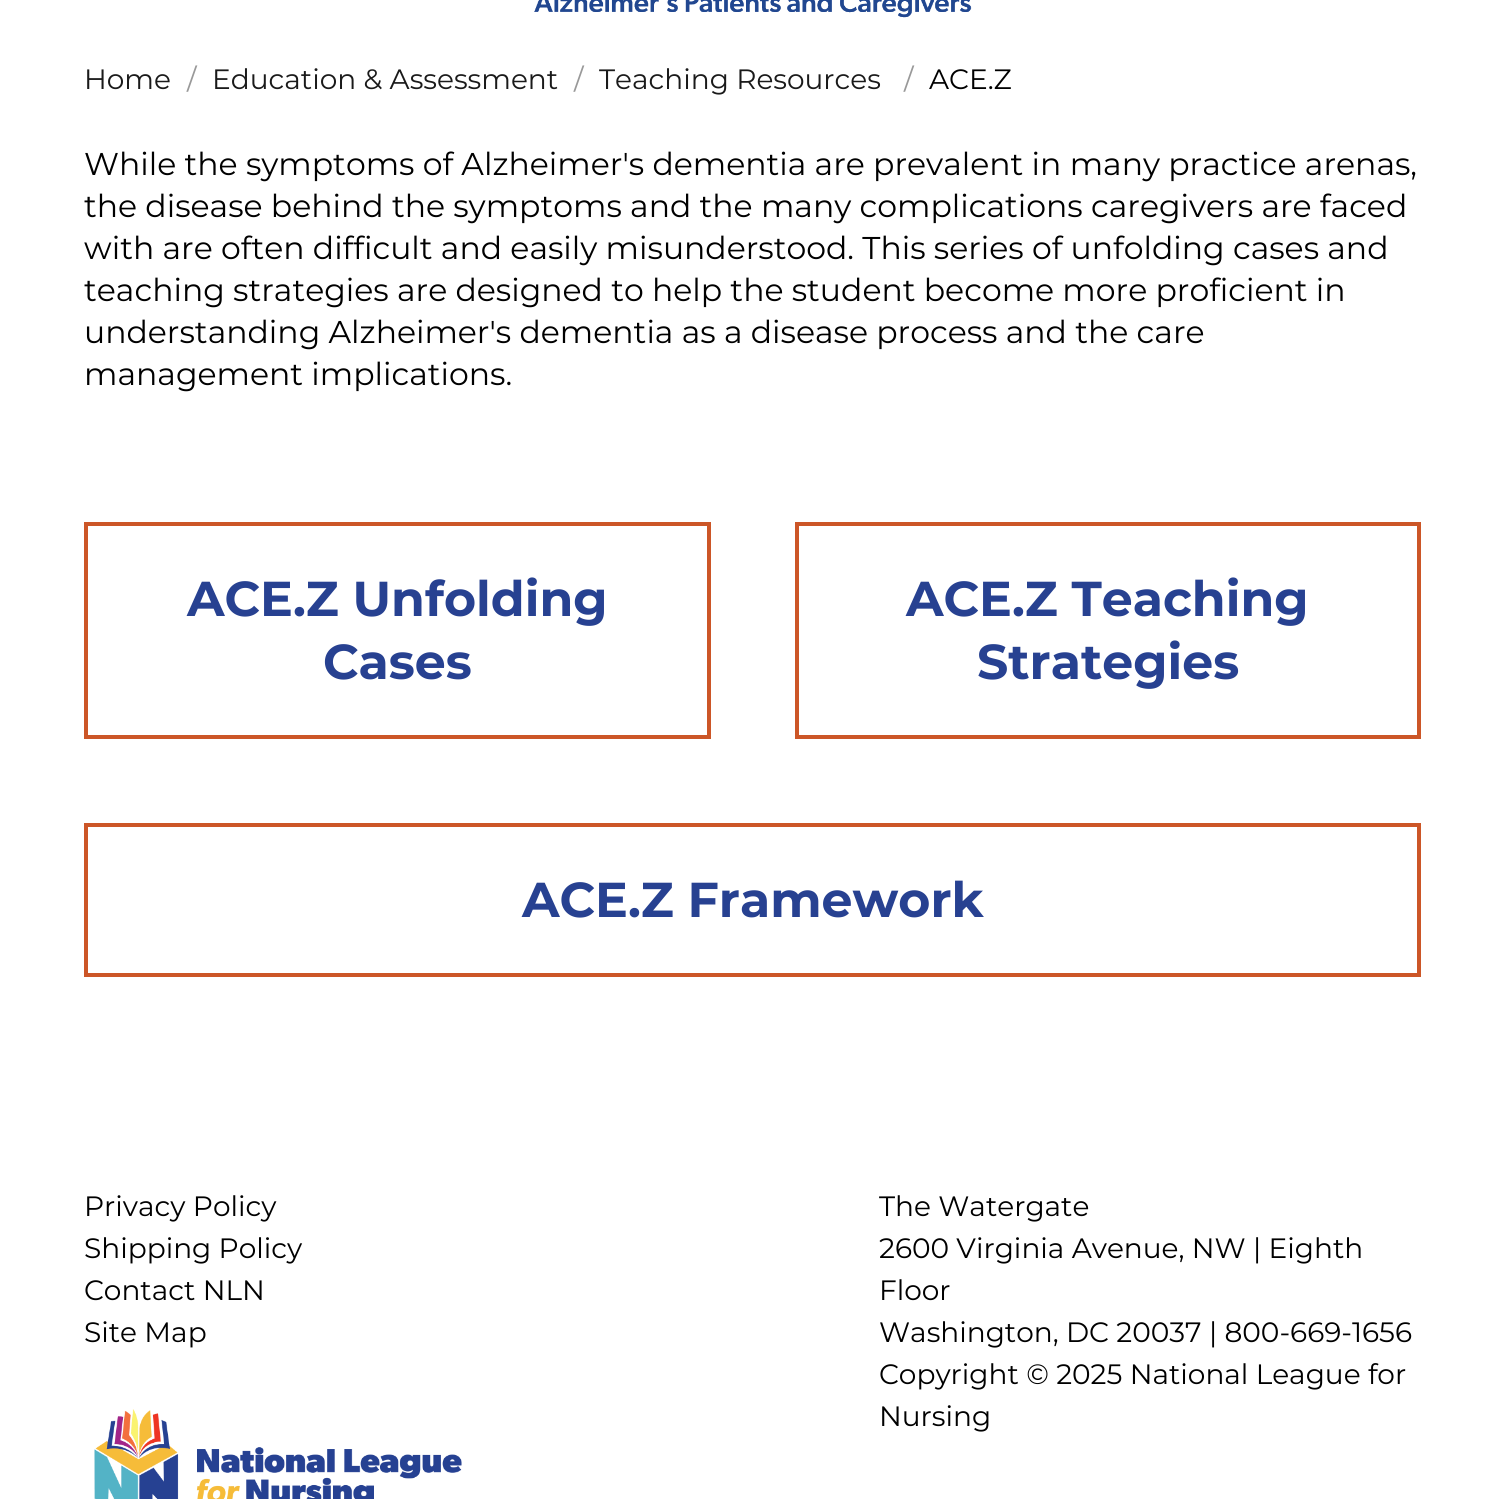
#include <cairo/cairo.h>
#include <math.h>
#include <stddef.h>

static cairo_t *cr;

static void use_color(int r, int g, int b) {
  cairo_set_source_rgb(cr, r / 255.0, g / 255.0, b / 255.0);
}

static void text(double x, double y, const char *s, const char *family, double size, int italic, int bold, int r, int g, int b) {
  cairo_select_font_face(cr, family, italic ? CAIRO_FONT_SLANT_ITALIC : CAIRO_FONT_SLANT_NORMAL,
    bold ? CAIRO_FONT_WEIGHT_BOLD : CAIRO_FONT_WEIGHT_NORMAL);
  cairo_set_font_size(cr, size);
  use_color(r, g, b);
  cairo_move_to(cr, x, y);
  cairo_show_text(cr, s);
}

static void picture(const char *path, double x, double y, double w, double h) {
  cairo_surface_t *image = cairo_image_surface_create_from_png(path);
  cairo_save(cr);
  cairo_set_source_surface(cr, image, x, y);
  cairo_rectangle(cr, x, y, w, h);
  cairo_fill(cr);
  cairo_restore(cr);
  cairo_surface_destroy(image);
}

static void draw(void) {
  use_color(255, 255, 255);
  cairo_paint(cr);
  picture("img_01.png", 534, 0, 438, 18);
  cairo_rectangle(cr, 86, 524, 623, 213);
  use_color(204, 86, 39);
  cairo_set_line_width(cr, 4);
  cairo_stroke(cr);
  cairo_rectangle(cr, 797, 524, 622, 213);
  cairo_stroke(cr);
  cairo_rectangle(cr, 86, 825, 1333, 150);
  cairo_stroke(cr);
  picture("img_02.png", 94, 1409, 368, 90);
  text(84, 89, "Home", "Montserrat", 28, 0, 0, 26, 26, 26);
  text(187, 89, "/", "Montserrat", 28, 0, 0, 153, 153, 153);
  text(212, 89, "Education & Assessment", "Montserrat", 28, 0, 0, 26, 26, 26);
  text(574, 89, "/", "Montserrat", 28, 0, 0, 153, 153, 153);
  text(599, 89, "Teaching Resources", "Montserrat", 28, 0, 0, 26, 26, 26);
  text(904, 89, "/", "Montserrat", 28, 0, 0, 153, 153, 153);
  text(929, 89, "ACE.Z", "Montserrat", 28, 0, 0, 0, 0, 0);
  text(84, 175, "While the symptoms of Alzheimer's dementia are prevalent in many practice arenas,", "Montserrat", 31.5, 0, 0, 0, 0, 0);
  text(84, 217, "the disease behind the symptoms and the many complications caregivers are faced", "Montserrat", 31.5, 0, 0, 0, 0, 0);
  text(84, 259, "with are often difficult and easily misunderstood. This series of unfolding cases and", "Montserrat", 31.5, 0, 0, 0, 0, 0);
  text(84, 301, "teaching strategies are designed to help the student become more proficient in", "Montserrat", 31.5, 0, 0, 0, 0, 0);
  text(84, 343, "understanding Alzheimer's dementia as a disease process and the care", "Montserrat", 31.5, 0, 0, 0, 0, 0);
  text(84, 385, "management implications.", "Montserrat", 31.5, 0, 0, 0, 0, 0);
  text(187, 616, "ACE.Z Unfolding", "Montserrat", 49, 0, 1, 39, 65, 145);
  text(323, 679, "Cases", "Montserrat", 49, 0, 1, 39, 65, 145);
  text(906, 616, "ACE.Z Teaching", "Montserrat", 49, 0, 1, 39, 65, 145);
  text(977, 679, "Strategies", "Montserrat", 49, 0, 1, 39, 65, 145);
  text(522, 917, "ACE.Z Framework", "Montserrat", 49, 0, 1, 39, 65, 145);
  text(84, 1216, "Privacy Policy", "Montserrat", 28, 0, 0, 0, 0, 0);
  text(84, 1258, "Shipping Policy", "Montserrat", 28, 0, 0, 0, 0, 0);
  text(84, 1300, "Contact NLN", "Montserrat", 28, 0, 0, 0, 0, 0);
  text(84, 1342, "Site Map", "Montserrat", 28, 0, 0, 0, 0, 0);
  text(879, 1216, "The Watergate", "Montserrat", 28, 0, 0, 0, 0, 0);
  text(879, 1258, "2600 Virginia Avenue, NW | Eighth", "Montserrat", 28, 0, 0, 0, 0, 0);
  text(879, 1300, "Floor", "Montserrat", 28, 0, 0, 0, 0, 0);
  text(879, 1342, "Washington, DC 20037 | 800-669-1656", "Montserrat", 28, 0, 0, 0, 0, 0);
  text(879, 1384, "Copyright © 2025 National League for", "Montserrat", 28, 0, 0, 0, 0, 0);
  text(879, 1426, "Nursing", "Montserrat", 28, 0, 0, 0, 0, 0);
}

int main(void) {
  cairo_surface_t *surface = cairo_image_surface_create(CAIRO_FORMAT_RGB24, 1504, 1499);
  cr = cairo_create(surface);
  cairo_font_options_t *options = cairo_font_options_create();
  cairo_font_options_set_hint_metrics(options, CAIRO_HINT_METRICS_OFF);
  cairo_font_options_set_hint_style(options, CAIRO_HINT_STYLE_NONE);
  cairo_set_font_options(cr, options);
  cairo_set_miter_limit(cr, 4);
  draw();
  cairo_surface_write_to_png(surface, "out.png");
  cairo_font_options_destroy(options);
  cairo_destroy(cr);
  cairo_surface_destroy(surface);
  return 0;
}
